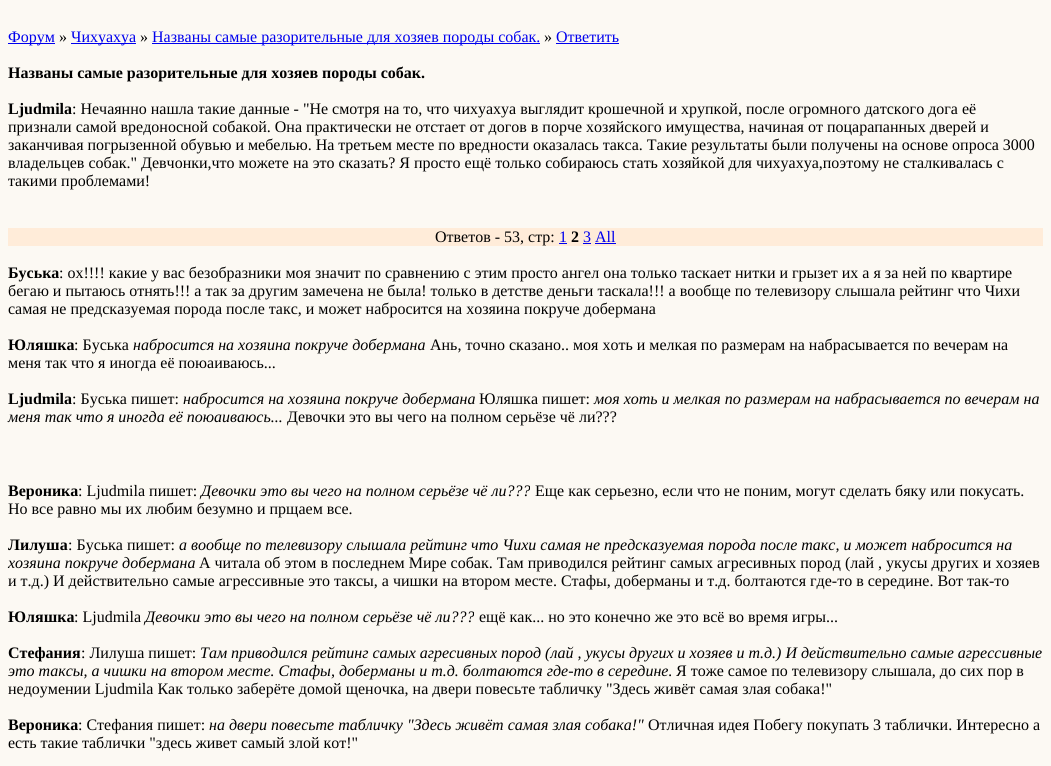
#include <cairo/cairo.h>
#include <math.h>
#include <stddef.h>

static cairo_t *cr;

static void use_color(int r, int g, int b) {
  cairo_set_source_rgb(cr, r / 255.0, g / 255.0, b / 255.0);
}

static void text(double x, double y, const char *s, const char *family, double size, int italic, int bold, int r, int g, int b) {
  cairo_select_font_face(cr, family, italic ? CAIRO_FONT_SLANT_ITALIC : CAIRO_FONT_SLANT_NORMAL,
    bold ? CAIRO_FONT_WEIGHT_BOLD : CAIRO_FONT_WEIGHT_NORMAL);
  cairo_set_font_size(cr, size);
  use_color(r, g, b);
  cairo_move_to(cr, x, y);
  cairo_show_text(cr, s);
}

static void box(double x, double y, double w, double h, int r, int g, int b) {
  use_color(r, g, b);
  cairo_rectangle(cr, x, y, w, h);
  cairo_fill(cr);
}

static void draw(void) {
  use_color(252, 249, 243);
  cairo_paint(cr);
  box(8, 43, 47, 1, 0, 0, 238);
  box(71, 43, 65, 1, 0, 0, 238);
  box(152, 43, 388, 1, 0, 0, 238);
  box(556, 43, 63, 1, 0, 0, 238);
  box(8, 228, 1035, 18, 255, 236, 217);
  box(559, 243, 8, 1, 0, 0, 238);
  box(583, 243, 8, 1, 0, 0, 238);
  box(595, 243, 21, 1, 0, 0, 238);
  text(8, 42, "Форум", "Liberation Serif", 16, 0, 0, 0, 0, 238);
  text(59, 42, "»", "Liberation Serif", 16, 0, 0, 0, 0, 0);
  text(71, 42, "Чихуахуа", "Liberation Serif", 16, 0, 0, 0, 0, 238);
  text(140, 42, "»", "Liberation Serif", 16, 0, 0, 0, 0, 0);
  text(152, 42, "Названы самые разорительные для хозяев породы собак.", "Liberation Serif", 16, 0, 0, 0, 0, 238);
  text(544, 42, "»", "Liberation Serif", 16, 0, 0, 0, 0, 0);
  text(556, 42, "Ответить", "Liberation Serif", 16, 0, 0, 0, 0, 238);
  text(8, 78, "Названы самые разорительные для хозяев породы собак.", "Liberation Serif", 16, 0, 1, 0, 0, 0);
  text(8, 114, "Ljudmila", "Liberation Serif", 16, 0, 1, 0, 0, 0);
  text(72, 114, ": Нечаянно нашла такие данные - \"Не смотря на то, что чихуахуа выглядит крошечной и хрупкой, после огромного датского дога её", "Liberation Serif", 16, 0, 0, 0, 0, 0);
  text(8, 132, "признали самой вредоносной собакой. Она практически не отстает от догов в порче хозяйского имущества, начиная от поцарапанных дверей и", "Liberation Serif", 16, 0, 0, 0, 0, 0);
  text(8, 150, "заканчивая погрызенной обувью и мебелью. На третьем месте по вредности оказалась такса. Такие результаты были получены на основе опроса 3000", "Liberation Serif", 16, 0, 0, 0, 0, 0);
  text(8, 168, "владельцев собак.\" Девчонки,что можете на это сказать? Я просто ещё только собираюсь стать хозяйкой для чихуахуа,поэтому не сталкивалась с", "Liberation Serif", 16, 0, 0, 0, 0, 0);
  text(8, 186, "такими проблемами!", "Liberation Serif", 16, 0, 0, 0, 0, 0);
  text(435, 242, "Ответов - 53, стр:", "Liberation Serif", 16, 0, 0, 0, 0, 0);
  text(559, 242, "1", "Liberation Serif", 16, 0, 0, 0, 0, 238);
  text(571, 242, "2", "Liberation Serif", 16, 0, 1, 0, 0, 0);
  text(583, 242, "3 All", "Liberation Serif", 16, 0, 0, 0, 0, 238);
  text(8, 278, "Буська", "Liberation Serif", 16, 0, 1, 0, 0, 0);
  text(59, 278, ": ох!!!! какие у вас безобразники моя значит по сравнению с этим просто ангел она только таскает нитки и грызет их а я за ней по квартире", "Liberation Serif", 16, 0, 0, 0, 0, 0);
  text(8, 296, "бегаю и пытаюсь отнять!!! а так за другим замечена не была! только в детстве деньги таскала!!! а вообще по телевизору слышала рейтинг что Чихи", "Liberation Serif", 16, 0, 0, 0, 0, 0);
  text(8, 314, "самая не предсказуемая порода после такс, и может набросится на хозяина покруче добермана", "Liberation Serif", 16, 0, 0, 0, 0, 0);
  text(8, 350, "Юляшка", "Liberation Serif", 16, 0, 1, 0, 0, 0);
  text(74, 350, ": Буська", "Liberation Serif", 16, 0, 0, 0, 0, 0);
  text(133, 350, "набросится на хозяина покруче добермана", "Liberation Serif", 16, 1, 0, 0, 0, 0);
  text(430, 350, "Ань, точно сказано.. моя хоть и мелкая по размерам на набрасывается по вечерам на", "Liberation Serif", 16, 0, 0, 0, 0, 0);
  text(8, 368, "меня так что я иногда её поюаиваюсь...", "Liberation Serif", 16, 0, 0, 0, 0, 0);
  text(8, 404, "Ljudmila", "Liberation Serif", 16, 0, 1, 0, 0, 0);
  text(72, 404, ": Буська пишет:", "Liberation Serif", 16, 0, 0, 0, 0, 0);
  text(183, 404, "набросится на хозяина покруче добермана", "Liberation Serif", 16, 1, 0, 0, 0, 0);
  text(479, 404, "Юляшка пишет:", "Liberation Serif", 16, 0, 0, 0, 0, 0);
  text(594, 404, "моя хоть и мелкая по размерам на набрасывается по вечерам на", "Liberation Serif", 16, 1, 0, 0, 0, 0);
  text(8, 422, "меня так что я иногда её поюаиваюсь...", "Liberation Serif", 16, 1, 0, 0, 0, 0);
  text(287, 422, "Девочки это вы чего на полном серьёзе чё ли?\077?", "Liberation Serif", 16, 0, 0, 0, 0, 0);
  text(8, 496, "Вероника", "Liberation Serif", 16, 0, 1, 0, 0, 0);
  text(78, 496, ": Ljudmila пишет:", "Liberation Serif", 16, 0, 0, 0, 0, 0);
  text(201, 496, "Девочки это вы чего на полном серьёзе чё ли?\077?", "Liberation Serif", 16, 1, 0, 0, 0, 0);
  text(535, 496, "Еще как серьезно, если что не поним, могут сделать бяку или покусать.", "Liberation Serif", 16, 0, 0, 0, 0, 0);
  text(8, 514, "Но все равно мы их любим безумно и прщаем все.", "Liberation Serif", 16, 0, 0, 0, 0, 0);
  text(8, 550, "Лилуша", "Liberation Serif", 16, 0, 1, 0, 0, 0);
  text(68, 550, ": Буська пишет:", "Liberation Serif", 16, 0, 0, 0, 0, 0);
  text(179, 550, "а вообще по телевизору слышала рейтинг что Чихи самая не предсказуемая порода после такс, и может набросится на", "Liberation Serif", 16, 1, 0, 0, 0, 0);
  text(8, 568, "хозяина покруче добермана", "Liberation Serif", 16, 1, 0, 0, 0, 0);
  text(199, 568, "А читала об этом в последнем Мире собак. Там приводился рейтинг самых агресивных пород (лай , укусы других и хозяев", "Liberation Serif", 16, 0, 0, 0, 0, 0);
  text(8, 586, "и т.д.) И действительно самые агрессивные это таксы, а чишки на втором месте. Стафы, доберманы и т.д. болтаются где-то в середине. Вот так-то", "Liberation Serif", 16, 0, 0, 0, 0, 0);
  text(8, 622, "Юляшка", "Liberation Serif", 16, 0, 1, 0, 0, 0);
  text(74, 622, ": Ljudmila", "Liberation Serif", 16, 0, 0, 0, 0, 0);
  text(145, 622, "Девочки это вы чего на полном серьёзе чё ли?\077?", "Liberation Serif", 16, 1, 0, 0, 0, 0);
  text(479, 622, "ещё как... но это конечно же это всё во время игры...", "Liberation Serif", 16, 0, 0, 0, 0, 0);
  text(8, 658, "Стефания", "Liberation Serif", 16, 0, 1, 0, 0, 0);
  text(81, 658, ": Лилуша пишет:", "Liberation Serif", 16, 0, 0, 0, 0, 0);
  text(200, 658, "Там приводился рейтинг самых агресивных пород (лай , укусы других и хозяев и т.д.) И действительно самые агрессивные", "Liberation Serif", 16, 1, 0, 0, 0, 0);
  text(8, 676, "это таксы, а чишки на втором месте. Стафы, доберманы и т.д. болтаются где-то в середине.", "Liberation Serif", 16, 1, 0, 0, 0, 0);
  text(676, 676, "Я тоже самое по телевизору слышала, до сих пор в", "Liberation Serif", 16, 0, 0, 0, 0, 0);
  text(8, 694, "недоумении Ljudmila Как только заберёте домой щеночка, на двери повесьте табличку \"Здесь живёт самая злая собака!\"", "Liberation Serif", 16, 0, 0, 0, 0, 0);
  text(8, 730, "Вероника", "Liberation Serif", 16, 0, 1, 0, 0, 0);
  text(78, 730, ": Стефания пишет:", "Liberation Serif", 16, 0, 0, 0, 0, 0);
  text(209, 730, "на двери повесьте табличку \"Здесь живёт самая злая собака!\"", "Liberation Serif", 16, 1, 0, 0, 0, 0);
  text(648, 730, "Отличная идея Побегу покупать 3 таблички. Интересно а", "Liberation Serif", 16, 0, 0, 0, 0, 0);
  text(8, 748, "есть такие таблички \"здесь живет самый злой кот!\"", "Liberation Serif", 16, 0, 0, 0, 0, 0);
}

int main(void) {
  cairo_surface_t *surface = cairo_image_surface_create(CAIRO_FORMAT_RGB24, 1051, 766);
  cr = cairo_create(surface);
  cairo_font_options_t *options = cairo_font_options_create();
  cairo_font_options_set_hint_metrics(options, CAIRO_HINT_METRICS_OFF);
  cairo_font_options_set_hint_style(options, CAIRO_HINT_STYLE_NONE);
  cairo_set_font_options(cr, options);
  cairo_set_miter_limit(cr, 4);
  draw();
  cairo_surface_write_to_png(surface, "out.png");
  cairo_font_options_destroy(options);
  cairo_destroy(cr);
  cairo_surface_destroy(surface);
  return 0;
}
